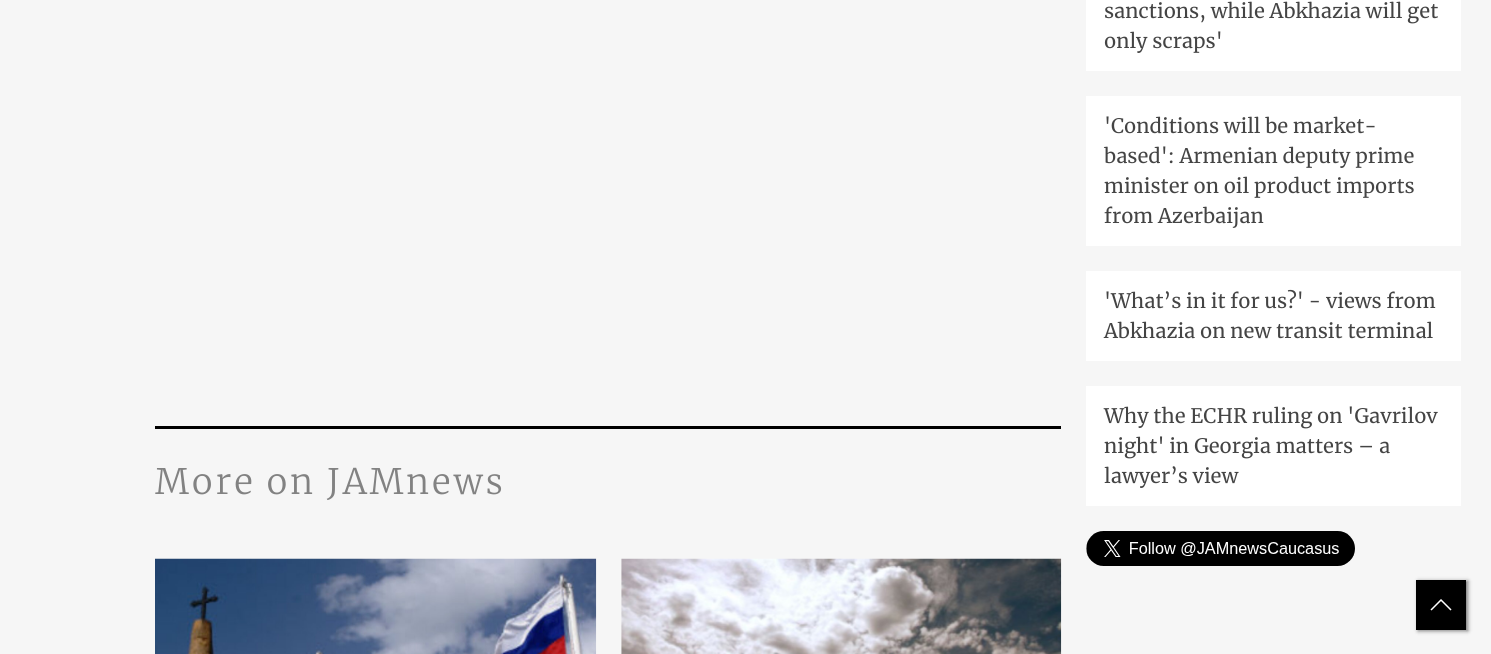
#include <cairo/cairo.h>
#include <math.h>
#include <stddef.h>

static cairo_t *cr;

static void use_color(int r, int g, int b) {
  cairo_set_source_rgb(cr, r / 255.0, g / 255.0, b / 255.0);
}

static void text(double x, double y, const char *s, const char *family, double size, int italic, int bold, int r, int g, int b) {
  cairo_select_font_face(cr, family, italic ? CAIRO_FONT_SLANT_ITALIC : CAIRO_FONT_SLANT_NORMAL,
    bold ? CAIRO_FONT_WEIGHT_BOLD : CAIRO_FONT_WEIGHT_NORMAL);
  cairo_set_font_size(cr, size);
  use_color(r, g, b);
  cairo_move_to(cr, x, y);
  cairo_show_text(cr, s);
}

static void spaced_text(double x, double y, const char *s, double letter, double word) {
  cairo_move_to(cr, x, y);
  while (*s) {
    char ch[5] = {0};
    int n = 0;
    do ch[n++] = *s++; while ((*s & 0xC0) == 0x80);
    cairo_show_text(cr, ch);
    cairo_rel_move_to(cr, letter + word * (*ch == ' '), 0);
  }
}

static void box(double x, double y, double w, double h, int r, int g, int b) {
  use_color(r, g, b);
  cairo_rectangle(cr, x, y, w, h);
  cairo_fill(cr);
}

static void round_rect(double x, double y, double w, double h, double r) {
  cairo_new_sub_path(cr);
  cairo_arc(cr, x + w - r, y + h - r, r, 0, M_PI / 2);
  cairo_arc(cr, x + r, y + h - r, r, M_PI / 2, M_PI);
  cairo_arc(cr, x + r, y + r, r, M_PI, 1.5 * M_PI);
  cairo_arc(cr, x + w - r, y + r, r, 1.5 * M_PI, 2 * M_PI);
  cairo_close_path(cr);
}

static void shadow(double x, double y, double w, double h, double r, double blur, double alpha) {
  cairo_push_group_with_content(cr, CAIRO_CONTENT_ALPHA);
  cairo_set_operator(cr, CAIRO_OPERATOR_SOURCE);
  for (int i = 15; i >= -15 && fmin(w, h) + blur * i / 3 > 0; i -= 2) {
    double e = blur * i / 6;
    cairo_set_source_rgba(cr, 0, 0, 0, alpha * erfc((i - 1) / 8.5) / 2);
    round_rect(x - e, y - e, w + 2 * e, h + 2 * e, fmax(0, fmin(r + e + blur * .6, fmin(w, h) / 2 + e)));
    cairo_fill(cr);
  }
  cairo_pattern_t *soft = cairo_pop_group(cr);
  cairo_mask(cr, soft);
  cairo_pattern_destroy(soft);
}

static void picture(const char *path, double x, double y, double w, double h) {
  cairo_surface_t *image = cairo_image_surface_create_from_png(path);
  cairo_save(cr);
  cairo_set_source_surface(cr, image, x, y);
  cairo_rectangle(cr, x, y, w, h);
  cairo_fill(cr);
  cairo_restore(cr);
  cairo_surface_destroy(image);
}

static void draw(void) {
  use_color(246, 246, 246);
  cairo_paint(cr);
  box(155, 426, 906, 3, 0, 0, 0);
  picture("img_01.png", 155, 558, 442, 96);
  picture("img_02.png", 621, 558, 441, 96);
  box(1086, 0, 375, 71, 255, 255, 255);
  box(1086, 96, 375, 150, 255, 255, 255);
  box(1086, 271, 375, 90, 255, 255, 255);
  box(1086, 386, 375, 120, 255, 255, 255);
  picture("img_03.png", 1086, 531, 269, 35);
  use_color(0, 0, 0);
  shadow(1418, 581, 50, 50, 0, 2, 0.5);
  box(1416, 580, 50, 50, 0, 0, 0);
  cairo_new_path(cr);
  cairo_move_to(cr, 1431, 610);
  cairo_line_to(cr, 1441, 600);
  cairo_line_to(cr, 1451, 610);
  use_color(255, 255, 255);
  cairo_set_line_width(cr, 1.5);
  cairo_stroke(cr);
  cairo_select_font_face(cr, "Merriweather Light", CAIRO_FONT_SLANT_NORMAL, CAIRO_FONT_WEIGHT_NORMAL);
  cairo_set_font_size(cr, 35);
  use_color(130, 130, 130);
  spaced_text(155, 494, "More on JAMnews", 2.75, 0);
  text(1104, 18, "sanctions, while Abkhazia will get", "Merriweather", 20, 0, 0, 68, 68, 68);
  text(1104, 48, "only scraps'", "Merriweather", 20, 0, 0, 68, 68, 68);
  text(1104, 133, "'Conditions will be market-", "Merriweather", 20, 0, 0, 68, 68, 68);
  text(1104, 163, "based': Armenian deputy prime", "Merriweather", 20, 0, 0, 68, 68, 68);
  text(1104, 193, "minister on oil product imports", "Merriweather", 20, 0, 0, 68, 68, 68);
  text(1104, 223, "from Azerbaijan", "Merriweather", 20, 0, 0, 68, 68, 68);
  text(1104, 308, "'What’s in it for us?' - views from", "Merriweather", 20, 0, 0, 68, 68, 68);
  text(1104, 338, "Abkhazia on new transit terminal", "Merriweather", 20, 0, 0, 68, 68, 68);
  text(1104, 423, "Why the ECHR ruling on 'Gavrilov", "Merriweather", 20, 0, 0, 68, 68, 68);
  text(1104, 453, "night' in Georgia matters – a", "Merriweather", 20, 0, 0, 68, 68, 68);
  text(1104, 483, "lawyer’s view", "Merriweather", 20, 0, 0, 68, 68, 68);
}

int main(void) {
  cairo_surface_t *surface = cairo_image_surface_create(CAIRO_FORMAT_RGB24, 1491, 654);
  cr = cairo_create(surface);
  cairo_font_options_t *options = cairo_font_options_create();
  cairo_font_options_set_hint_metrics(options, CAIRO_HINT_METRICS_OFF);
  cairo_font_options_set_hint_style(options, CAIRO_HINT_STYLE_NONE);
  cairo_set_font_options(cr, options);
  cairo_set_miter_limit(cr, 4);
  draw();
  cairo_surface_write_to_png(surface, "out.png");
  cairo_font_options_destroy(options);
  cairo_destroy(cr);
  cairo_surface_destroy(surface);
  return 0;
}
